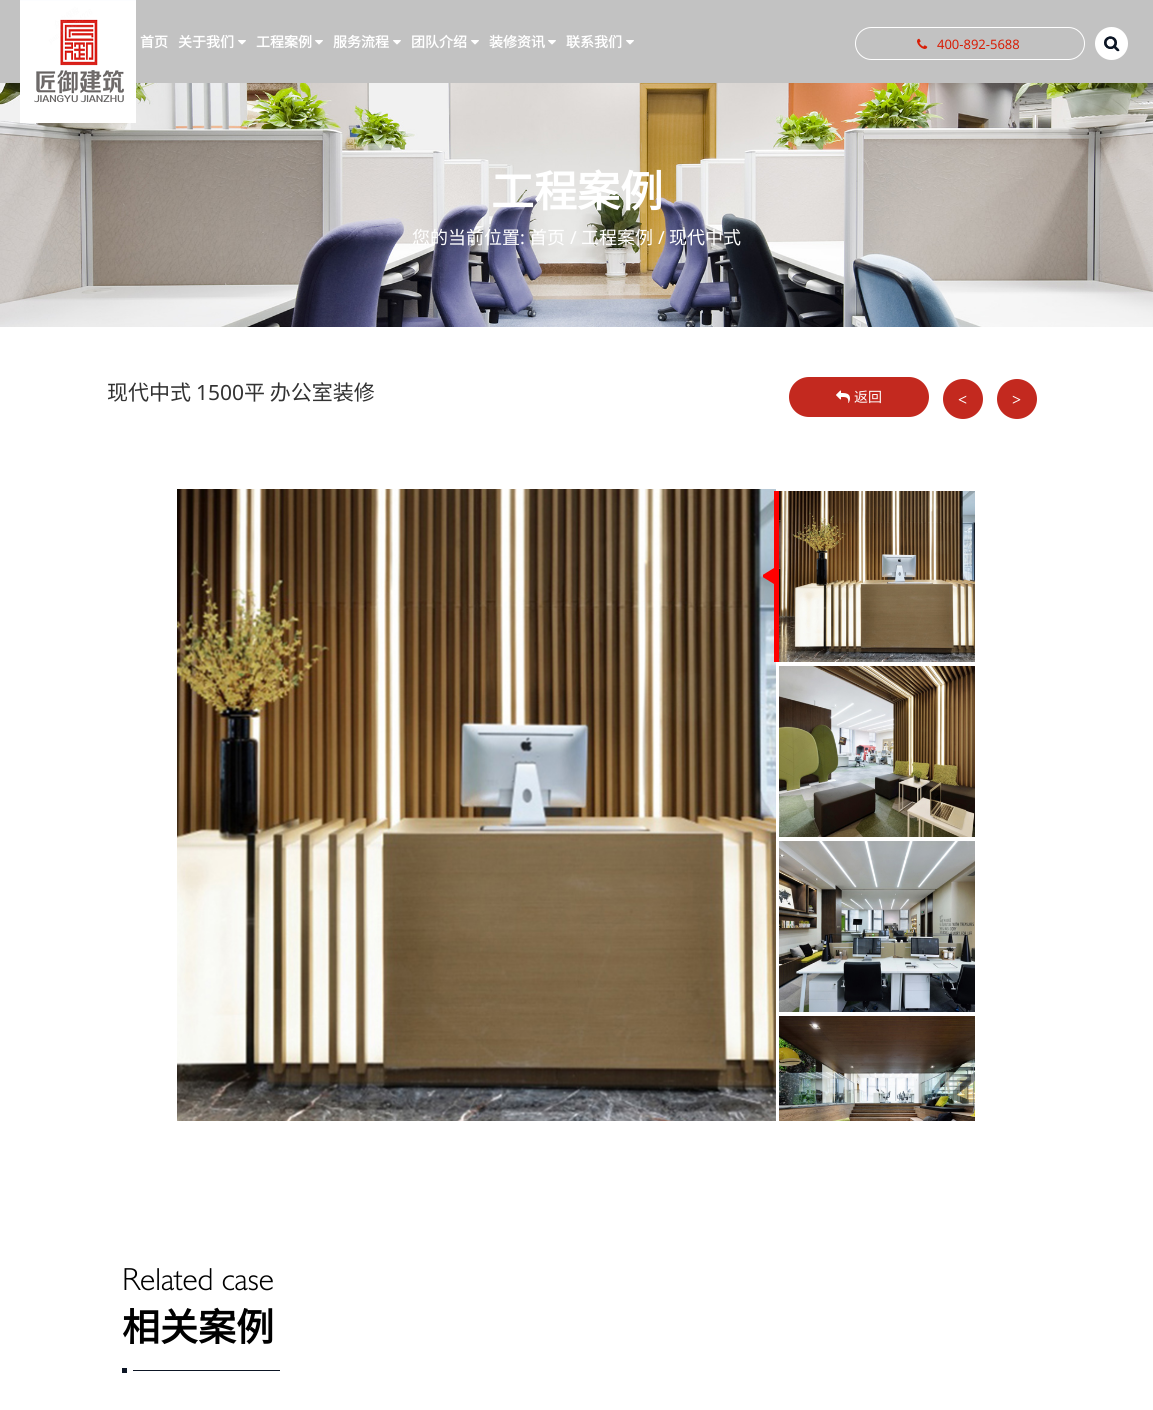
#include <cairo/cairo.h>
#include <math.h>
#include <stddef.h>

static cairo_t *cr;

static void use_color(int r, int g, int b) {
  cairo_set_source_rgb(cr, r / 255.0, g / 255.0, b / 255.0);
}

static void text(double x, double y, const char *s, const char *family, double size, int italic, int bold, int r, int g, int b) {
  cairo_select_font_face(cr, family, italic ? CAIRO_FONT_SLANT_ITALIC : CAIRO_FONT_SLANT_NORMAL,
    bold ? CAIRO_FONT_WEIGHT_BOLD : CAIRO_FONT_WEIGHT_NORMAL);
  cairo_set_font_size(cr, size);
  use_color(r, g, b);
  cairo_move_to(cr, x, y);
  cairo_show_text(cr, s);
}

static void box(double x, double y, double w, double h, int r, int g, int b) {
  use_color(r, g, b);
  cairo_rectangle(cr, x, y, w, h);
  cairo_fill(cr);
}

static void round_rect(double x, double y, double w, double h, double r) {
  cairo_new_sub_path(cr);
  cairo_arc(cr, x + w - r, y + h - r, r, 0, M_PI / 2);
  cairo_arc(cr, x + r, y + h - r, r, M_PI / 2, M_PI);
  cairo_arc(cr, x + r, y + r, r, M_PI, 1.5 * M_PI);
  cairo_arc(cr, x + w - r, y + r, r, 1.5 * M_PI, 2 * M_PI);
  cairo_close_path(cr);
}

static void picture(const char *path, double x, double y, double w, double h) {
  cairo_surface_t *image = cairo_image_surface_create_from_png(path);
  cairo_save(cr);
  cairo_set_source_surface(cr, image, x, y);
  cairo_rectangle(cr, x, y, w, h);
  cairo_fill(cr);
  cairo_restore(cr);
  cairo_surface_destroy(image);
}

static void draw(void) {
  use_color(255, 255, 255);
  cairo_paint(cr);
  box(0, 0, 1153, 83, 194, 194, 194);
  picture("img_05.png", 0, 83, 1153, 244);
  picture("img_01.png", 20, 0, 116, 123);
  picture("img_02.png", 238, 40, 8, 5);
  picture("img_02.png", 315, 40, 8, 5);
  picture("img_02.png", 393, 40, 8, 5);
  picture("img_02.png", 471, 40, 8, 5);
  picture("img_02.png", 548, 40, 8, 5);
  picture("img_02.png", 626, 40, 8, 5);
  round_rect(855.5, 27.5, 229, 32, 16);
  use_color(255, 255, 255);
  cairo_set_line_width(cr, 1);
  cairo_stroke(cr);
  picture("img_03.png", 917, 38, 11, 11);
  picture("img_04.png", 1095, 27, 33, 33);
  use_color(195, 41, 31);
  round_rect(789, 377, 140, 40, 20);
  cairo_fill(cr);
  picture("img_06.png", 836, 390, 14, 13);
  cairo_arc(cr, 963, 399, 20, 0, 2 * M_PI);
  cairo_fill(cr);
  cairo_arc(cr, 1017, 399, 20, 0, 2 * M_PI);
  cairo_fill(cr);
  picture("img_07.png", 177, 489, 599, 632);
  cairo_save(cr);
  cairo_rectangle(cr, 763, 491, 212, 171);
  cairo_clip(cr);
  use_color(255, 0, 0);
  cairo_new_path(cr);
  cairo_move_to(cr, 774, 568);
  cairo_line_to(cr, 774, 584);
  cairo_line_to(cr, 761, 576);
  cairo_close_path(cr);
  cairo_fill(cr);
  cairo_restore(cr);
  box(774, 491, 5, 171, 255, 0, 0);
  picture("img_08.png", 779, 491, 196, 171);
  picture("img_09.png", 779, 666, 196, 171);
  picture("img_10.png", 779, 841, 196, 171);
  picture("img_11.png", 779, 1016, 196, 105);
  picture("img_12.png", 122, 1368, 158, 5);
  text(140, 47, "首页", "Noto Sans CJK SC", 14, 0, 1, 255, 255, 255);
  text(178, 47, "关于我们", "Noto Sans CJK SC", 14, 0, 1, 255, 255, 255);
  text(256, 47, "工程案例", "Noto Sans CJK SC", 14, 0, 1, 255, 255, 255);
  text(333, 47, "服务流程", "Noto Sans CJK SC", 14, 0, 1, 255, 255, 255);
  text(411, 47, "团队介绍", "Noto Sans CJK SC", 14, 0, 1, 255, 255, 255);
  text(489, 47, "装修资讯", "Noto Sans CJK SC", 14, 0, 1, 255, 255, 255);
  text(566, 47, "联系我们", "Noto Sans CJK SC", 14, 0, 1, 255, 255, 255);
  text(937, 49, "400-892-5688", "Noto Sans", 13, 0, 0, 216, 30, 6);
  text(491, 207, "工程案例", "Noto Sans CJK SC", 43, 0, 1, 255, 255, 255);
  text(412, 244, "您的当前位置", "Noto Sans CJK SC", 18, 0, 0, 255, 255, 255);
  text(520, 244, ":", "Noto Sans", 18, 0, 0, 255, 255, 255);
  text(529, 244, "首页", "Noto Sans CJK SC", 18, 0, 0, 255, 255, 255);
  text(570, 244, "/", "Noto Sans", 18, 0, 0, 255, 255, 255);
  text(581, 244, "工程案例", "Noto Sans CJK SC", 18, 0, 0, 255, 255, 255);
  text(658, 244, "/", "Noto Sans", 18, 0, 0, 255, 255, 255);
  text(669, 244, "现代中式", "Noto Sans CJK SC", 18, 0, 0, 255, 255, 255);
  text(107, 400, "现代中式", "Noto Sans CJK SC", 21, 0, 0, 50, 50, 50);
  text(196, 400, "1500", "Noto Sans", 21, 0, 0, 50, 50, 50);
  text(244, 400, "平 办公室装修", "Noto Sans CJK SC", 21, 0, 0, 50, 50, 50);
  text(854, 402, "返回", "Noto Sans CJK SC", 14, 0, 0, 255, 255, 255);
  text(958, 405, "<", "Liberation Serif", 16, 0, 1, 255, 255, 255);
  text(1012, 405, ">", "Liberation Serif", 16, 0, 1, 255, 255, 255);
  text(122, 1290, "Related case", "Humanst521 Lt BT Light", 32, 0, 0, 0, 0, 0);
  text(122, 1341, "相关案例", "Noto Sans CJK SC", 38, 0, 1, 0, 0, 0);
}

int main(void) {
  cairo_surface_t *surface = cairo_image_surface_create(CAIRO_FORMAT_RGB24, 1153, 1410);
  cr = cairo_create(surface);
  cairo_font_options_t *options = cairo_font_options_create();
  cairo_font_options_set_hint_metrics(options, CAIRO_HINT_METRICS_OFF);
  cairo_font_options_set_hint_style(options, CAIRO_HINT_STYLE_NONE);
  cairo_set_font_options(cr, options);
  cairo_set_miter_limit(cr, 4);
  draw();
  cairo_surface_write_to_png(surface, "out.png");
  cairo_font_options_destroy(options);
  cairo_destroy(cr);
  cairo_surface_destroy(surface);
  return 0;
}
